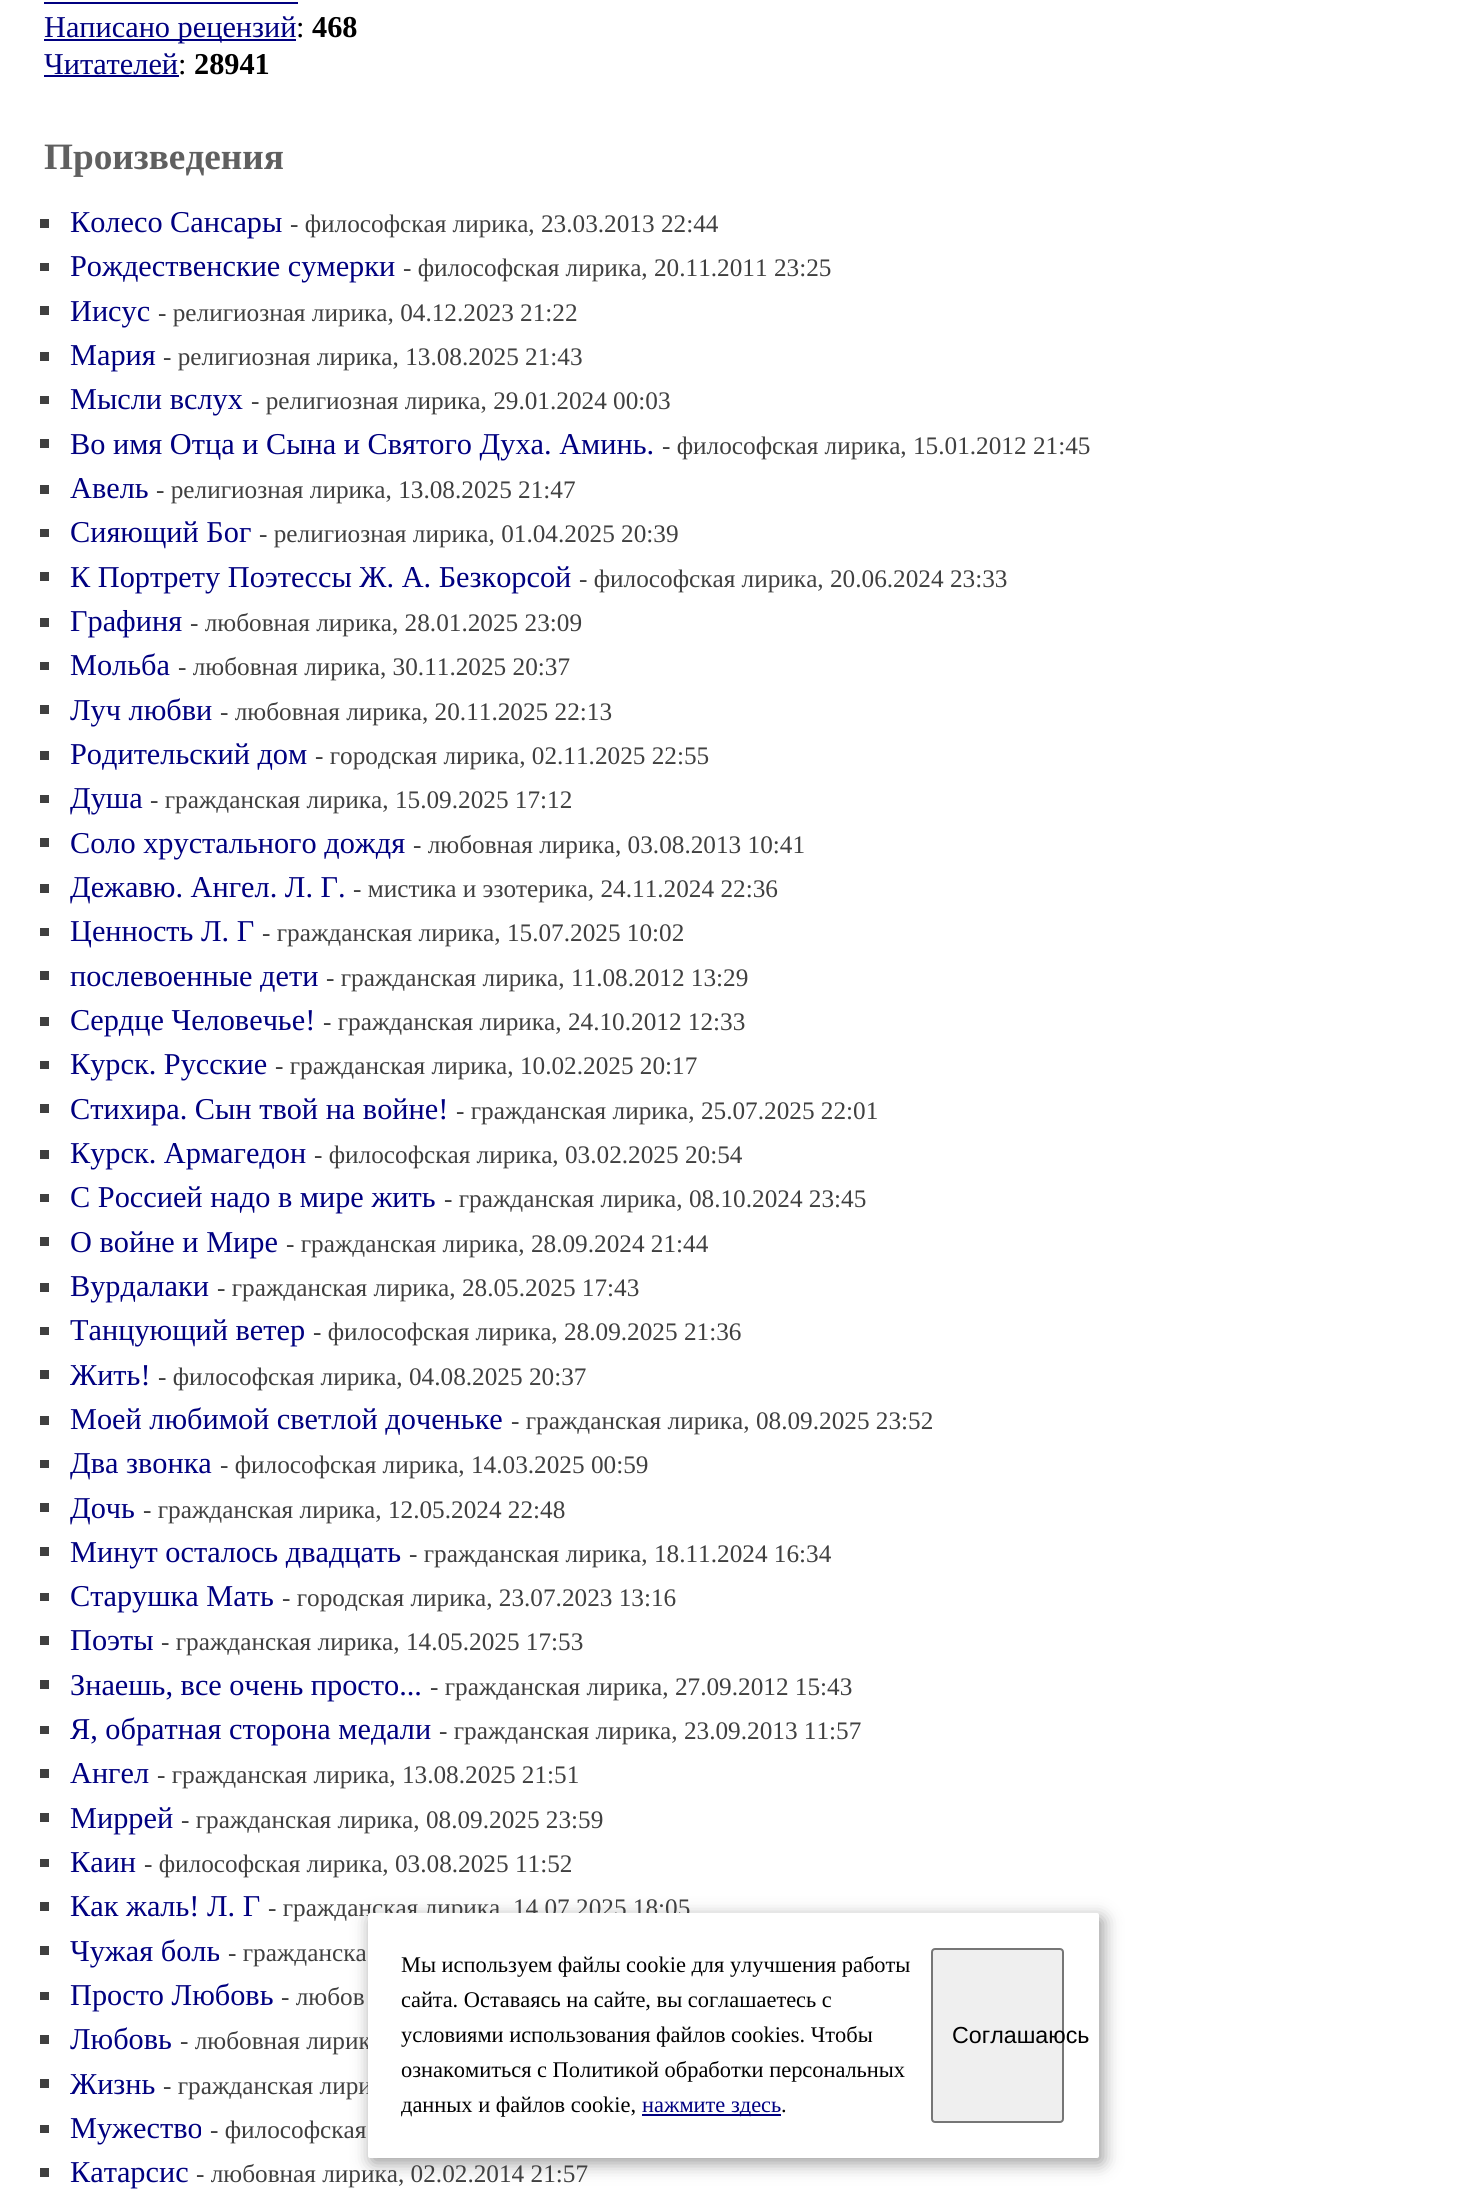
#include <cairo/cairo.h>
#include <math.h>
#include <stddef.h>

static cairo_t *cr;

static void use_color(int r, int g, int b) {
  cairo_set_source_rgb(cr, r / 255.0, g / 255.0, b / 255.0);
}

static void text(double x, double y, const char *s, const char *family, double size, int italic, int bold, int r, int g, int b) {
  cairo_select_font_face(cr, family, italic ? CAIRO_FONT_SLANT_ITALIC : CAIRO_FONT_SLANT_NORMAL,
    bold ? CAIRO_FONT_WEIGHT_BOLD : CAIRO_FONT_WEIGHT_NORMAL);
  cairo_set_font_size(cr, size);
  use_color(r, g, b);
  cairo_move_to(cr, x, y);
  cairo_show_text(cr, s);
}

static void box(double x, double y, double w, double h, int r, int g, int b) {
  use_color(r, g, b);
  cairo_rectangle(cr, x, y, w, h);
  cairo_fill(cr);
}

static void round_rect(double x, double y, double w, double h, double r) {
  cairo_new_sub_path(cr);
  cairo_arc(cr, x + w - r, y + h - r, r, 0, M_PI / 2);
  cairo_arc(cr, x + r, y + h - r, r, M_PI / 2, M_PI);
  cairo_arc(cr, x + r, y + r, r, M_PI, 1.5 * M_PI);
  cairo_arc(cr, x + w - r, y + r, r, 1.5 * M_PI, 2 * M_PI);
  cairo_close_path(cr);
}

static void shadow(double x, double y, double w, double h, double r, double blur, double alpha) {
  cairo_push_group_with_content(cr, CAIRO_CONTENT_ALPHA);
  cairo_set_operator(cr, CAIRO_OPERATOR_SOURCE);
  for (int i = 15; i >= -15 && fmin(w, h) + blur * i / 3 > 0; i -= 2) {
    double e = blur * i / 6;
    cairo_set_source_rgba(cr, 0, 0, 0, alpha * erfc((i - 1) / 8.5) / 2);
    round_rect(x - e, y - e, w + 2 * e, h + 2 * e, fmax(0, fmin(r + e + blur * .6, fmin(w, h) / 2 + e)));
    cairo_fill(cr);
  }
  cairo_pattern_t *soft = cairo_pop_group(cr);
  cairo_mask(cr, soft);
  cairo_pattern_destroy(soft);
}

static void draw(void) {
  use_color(255, 255, 255);
  cairo_paint(cr);
  box(44, 2, 254, 2, 0, 0, 128);
  box(44, 39, 252, 2, 0, 0, 128);
  box(44, 75, 135, 2, 0, 0, 128);
  box(40, 219, 9, 9, 64, 64, 64);
  box(40, 263, 9, 8, 64, 64, 64);
  box(40, 306, 9, 9, 64, 64, 64);
  box(40, 352, 9, 9, 64, 64, 64);
  box(40, 396, 9, 8, 64, 64, 64);
  box(40, 439, 9, 9, 64, 64, 64);
  box(40, 485, 9, 9, 64, 64, 64);
  box(40, 529, 9, 8, 64, 64, 64);
  box(40, 572, 9, 9, 64, 64, 64);
  box(40, 618, 9, 9, 64, 64, 64);
  box(40, 662, 9, 8, 64, 64, 64);
  box(40, 705, 9, 9, 64, 64, 64);
  box(40, 751, 9, 9, 64, 64, 64);
  box(40, 795, 9, 8, 64, 64, 64);
  box(40, 838, 9, 9, 64, 64, 64);
  box(40, 884, 9, 9, 64, 64, 64);
  box(40, 928, 9, 8, 64, 64, 64);
  box(40, 971, 9, 9, 64, 64, 64);
  box(40, 1017, 9, 9, 64, 64, 64);
  box(40, 1061, 9, 8, 64, 64, 64);
  box(40, 1104, 9, 9, 64, 64, 64);
  box(40, 1150, 9, 9, 64, 64, 64);
  box(40, 1194, 9, 8, 64, 64, 64);
  box(40, 1237, 9, 9, 64, 64, 64);
  box(40, 1283, 9, 9, 64, 64, 64);
  box(40, 1327, 9, 8, 64, 64, 64);
  box(40, 1370, 9, 9, 64, 64, 64);
  box(40, 1416, 9, 9, 64, 64, 64);
  box(40, 1460, 9, 8, 64, 64, 64);
  box(40, 1503, 9, 9, 64, 64, 64);
  box(40, 1547, 9, 9, 64, 64, 64);
  box(40, 1593, 9, 8, 64, 64, 64);
  box(40, 1636, 9, 9, 64, 64, 64);
  box(40, 1680, 9, 9, 64, 64, 64);
  box(40, 1726, 9, 8, 64, 64, 64);
  box(40, 1769, 9, 9, 64, 64, 64);
  box(40, 1813, 9, 9, 64, 64, 64);
  box(40, 1859, 9, 8, 64, 64, 64);
  box(40, 1902, 9, 9, 64, 64, 64);
  box(40, 1946, 9, 9, 64, 64, 64);
  box(40, 1992, 9, 8, 64, 64, 64);
  box(40, 2035, 9, 9, 64, 64, 64);
  box(40, 2079, 9, 9, 64, 64, 64);
  box(40, 2125, 9, 8, 64, 64, 64);
  box(40, 2168, 9, 9, 64, 64, 64);
  use_color(0, 0, 0);
  shadow(371, 1918, 732, 245, 2, 9, 0.4);
  text(44, 37, "Написано рецензий", "Liberation Serif", 30.3, 0, 0, 0, 0, 128);
  text(296, 37, ":", "Liberation Serif", 30.3, 0, 0, 0, 0, 0);
  text(312, 37, "468", "Liberation Serif", 30.3, 0, 1, 0, 0, 0);
  text(44, 74, "Читателей", "Liberation Serif", 30.3, 0, 0, 0, 0, 128);
  text(178, 74, ":", "Liberation Serif", 30.3, 0, 0, 0, 0, 0);
  text(194, 74, "28941", "Liberation Serif", 30.3, 0, 1, 0, 0, 0);
  text(44, 169, "Произведения", "Liberation Serif", 37.25, 0, 1, 96, 96, 96);
  text(70, 232, "Колесо Сансары", "Liberation Serif", 30.3, 0, 0, 0, 0, 128);
  text(290, 232, "- философская лирика, 23.03.2013 22:44", "Liberation Serif", 25.25, 0, 0, 64, 64, 64);
  text(70, 276, "Рождественские сумерки", "Liberation Serif", 30.3, 0, 0, 0, 0, 128);
  text(403, 276, "- философская лирика, 20.11.2011 23:25", "Liberation Serif", 25.25, 0, 0, 64, 64, 64);
  text(70, 321, "Иисус", "Liberation Serif", 30.3, 0, 0, 0, 0, 128);
  text(158, 321, "- религиозная лирика, 04.12.2023 21:22", "Liberation Serif", 25.25, 0, 0, 64, 64, 64);
  text(70, 365, "Мария", "Liberation Serif", 30.3, 0, 0, 0, 0, 128);
  text(163, 365, "- религиозная лирика, 13.08.2025 21:43", "Liberation Serif", 25.25, 0, 0, 64, 64, 64);
  text(70, 409, "Мысли вслух", "Liberation Serif", 30.3, 0, 0, 0, 0, 128);
  text(251, 409, "- религиозная лирика, 29.01.2024 00:03", "Liberation Serif", 25.25, 0, 0, 64, 64, 64);
  text(70, 454, "Во имя Отца и Сына и Святого Духа. Аминь.", "Liberation Serif", 30.3, 0, 0, 0, 0, 128);
  text(662, 454, "- философская лирика, 15.01.2012 21:45", "Liberation Serif", 25.25, 0, 0, 64, 64, 64);
  text(70, 498, "Авель", "Liberation Serif", 30.3, 0, 0, 0, 0, 128);
  text(156, 498, "- религиозная лирика, 13.08.2025 21:47", "Liberation Serif", 25.25, 0, 0, 64, 64, 64);
  text(70, 542, "Сияющий Бог", "Liberation Serif", 30.3, 0, 0, 0, 0, 128);
  text(259, 542, "- религиозная лирика, 01.04.2025 20:39", "Liberation Serif", 25.25, 0, 0, 64, 64, 64);
  text(70, 587, "К Портрету Поэтессы Ж. А. Безкорсой", "Liberation Serif", 30.3, 0, 0, 0, 0, 128);
  text(579, 587, "- философская лирика, 20.06.2024 23:33", "Liberation Serif", 25.25, 0, 0, 64, 64, 64);
  text(70, 631, "Графиня", "Liberation Serif", 30.3, 0, 0, 0, 0, 128);
  text(190, 631, "- любовная лирика, 28.01.2025 23:09", "Liberation Serif", 25.25, 0, 0, 64, 64, 64);
  text(70, 675, "Мольба", "Liberation Serif", 30.3, 0, 0, 0, 0, 128);
  text(178, 675, "- любовная лирика, 30.11.2025 20:37", "Liberation Serif", 25.25, 0, 0, 64, 64, 64);
  text(70, 720, "Луч любви", "Liberation Serif", 30.3, 0, 0, 0, 0, 128);
  text(220, 720, "- любовная лирика, 20.11.2025 22:13", "Liberation Serif", 25.25, 0, 0, 64, 64, 64);
  text(70, 764, "Родительский дом", "Liberation Serif", 30.3, 0, 0, 0, 0, 128);
  text(315, 764, "- городская лирика, 02.11.2025 22:55", "Liberation Serif", 25.25, 0, 0, 64, 64, 64);
  text(70, 808, "Душа", "Liberation Serif", 30.3, 0, 0, 0, 0, 128);
  text(150, 808, "- гражданская лирика, 15.09.2025 17:12", "Liberation Serif", 25.25, 0, 0, 64, 64, 64);
  text(70, 853, "Соло хрустального дождя", "Liberation Serif", 30.3, 0, 0, 0, 0, 128);
  text(413, 853, "- любовная лирика, 03.08.2013 10:41", "Liberation Serif", 25.25, 0, 0, 64, 64, 64);
  text(70, 897, "Дежавю. Ангел. Л. Г.", "Liberation Serif", 30.3, 0, 0, 0, 0, 128);
  text(353, 897, "- мистика и эзотерика, 24.11.2024 22:36", "Liberation Serif", 25.25, 0, 0, 64, 64, 64);
  text(70, 941, "Ценность Л. Г", "Liberation Serif", 30.3, 0, 0, 0, 0, 128);
  text(262, 941, "- гражданская лирика, 15.07.2025 10:02", "Liberation Serif", 25.25, 0, 0, 64, 64, 64);
  text(70, 986, "послевоенные дети", "Liberation Serif", 30.3, 0, 0, 0, 0, 128);
  text(326, 986, "- гражданская лирика, 11.08.2012 13:29", "Liberation Serif", 25.25, 0, 0, 64, 64, 64);
  text(70, 1030, "Сердце Человечье!", "Liberation Serif", 30.3, 0, 0, 0, 0, 128);
  text(323, 1030, "- гражданская лирика, 24.10.2012 12:33", "Liberation Serif", 25.25, 0, 0, 64, 64, 64);
  text(70, 1074, "Курск. Русские", "Liberation Serif", 30.3, 0, 0, 0, 0, 128);
  text(275, 1074, "- гражданская лирика, 10.02.2025 20:17", "Liberation Serif", 25.25, 0, 0, 64, 64, 64);
  text(70, 1119, "Стихира. Сын твой на войне!", "Liberation Serif", 30.3, 0, 0, 0, 0, 128);
  text(456, 1119, "- гражданская лирика, 25.07.2025 22:01", "Liberation Serif", 25.25, 0, 0, 64, 64, 64);
  text(70, 1163, "Курск. Армагедон", "Liberation Serif", 30.3, 0, 0, 0, 0, 128);
  text(314, 1163, "- философская лирика, 03.02.2025 20:54", "Liberation Serif", 25.25, 0, 0, 64, 64, 64);
  text(70, 1207, "С Россией надо в мире жить", "Liberation Serif", 30.3, 0, 0, 0, 0, 128);
  text(444, 1207, "- гражданская лирика, 08.10.2024 23:45", "Liberation Serif", 25.25, 0, 0, 64, 64, 64);
  text(70, 1252, "О войне и Мире", "Liberation Serif", 30.3, 0, 0, 0, 0, 128);
  text(286, 1252, "- гражданская лирика, 28.09.2024 21:44", "Liberation Serif", 25.25, 0, 0, 64, 64, 64);
  text(70, 1296, "Вурдалаки", "Liberation Serif", 30.3, 0, 0, 0, 0, 128);
  text(217, 1296, "- гражданская лирика, 28.05.2025 17:43", "Liberation Serif", 25.25, 0, 0, 64, 64, 64);
  text(70, 1340, "Танцующий ветер", "Liberation Serif", 30.3, 0, 0, 0, 0, 128);
  text(313, 1340, "- философская лирика, 28.09.2025 21:36", "Liberation Serif", 25.25, 0, 0, 64, 64, 64);
  text(70, 1385, "Жить!", "Liberation Serif", 30.3, 0, 0, 0, 0, 128);
  text(158, 1385, "- философская лирика, 04.08.2025 20:37", "Liberation Serif", 25.25, 0, 0, 64, 64, 64);
  text(70, 1429, "Моей любимой светлой доченьке", "Liberation Serif", 30.3, 0, 0, 0, 0, 128);
  text(511, 1429, "- гражданская лирика, 08.09.2025 23:52", "Liberation Serif", 25.25, 0, 0, 64, 64, 64);
  text(70, 1473, "Два звонка", "Liberation Serif", 30.3, 0, 0, 0, 0, 128);
  text(220, 1473, "- философская лирика, 14.03.2025 00:59", "Liberation Serif", 25.25, 0, 0, 64, 64, 64);
  text(70, 1518, "Дочь", "Liberation Serif", 30.3, 0, 0, 0, 0, 128);
  text(143, 1518, "- гражданская лирика, 12.05.2024 22:48", "Liberation Serif", 25.25, 0, 0, 64, 64, 64);
  text(70, 1562, "Минут осталось двадцать", "Liberation Serif", 30.3, 0, 0, 0, 0, 128);
  text(409, 1562, "- гражданская лирика, 18.11.2024 16:34", "Liberation Serif", 25.25, 0, 0, 64, 64, 64);
  text(70, 1606, "Старушка Мать", "Liberation Serif", 30.3, 0, 0, 0, 0, 128);
  text(282, 1606, "- городская лирика, 23.07.2023 13:16", "Liberation Serif", 25.25, 0, 0, 64, 64, 64);
  text(70, 1650, "Поэты", "Liberation Serif", 30.3, 0, 0, 0, 0, 128);
  text(161, 1650, "- гражданская лирика, 14.05.2025 17:53", "Liberation Serif", 25.25, 0, 0, 64, 64, 64);
  text(70, 1695, "Знаешь, все очень просто...", "Liberation Serif", 30.3, 0, 0, 0, 0, 128);
  text(430, 1695, "- гражданская лирика, 27.09.2012 15:43", "Liberation Serif", 25.25, 0, 0, 64, 64, 64);
  text(70, 1739, "Я, обратная сторона медали", "Liberation Serif", 30.3, 0, 0, 0, 0, 128);
  text(439, 1739, "- гражданская лирика, 23.09.2013 11:57", "Liberation Serif", 25.25, 0, 0, 64, 64, 64);
  text(70, 1783, "Ангел", "Liberation Serif", 30.3, 0, 0, 0, 0, 128);
  text(157, 1783, "- гражданская лирика, 13.08.2025 21:51", "Liberation Serif", 25.25, 0, 0, 64, 64, 64);
  text(70, 1828, "Миррей", "Liberation Serif", 30.3, 0, 0, 0, 0, 128);
  text(181, 1828, "- гражданская лирика, 08.09.2025 23:59", "Liberation Serif", 25.25, 0, 0, 64, 64, 64);
  text(70, 1872, "Каин", "Liberation Serif", 30.3, 0, 0, 0, 0, 128);
  text(144, 1872, "- философская лирика, 03.08.2025 11:52", "Liberation Serif", 25.25, 0, 0, 64, 64, 64);
  text(70, 1916, "Как жаль! Л. Г", "Liberation Serif", 30.3, 0, 0, 0, 0, 128);
  text(268, 1916, "- гражданская лирика, 14.07.2025 18:05", "Liberation Serif", 25.25, 0, 0, 64, 64, 64);
  text(70, 1961, "Чужая боль", "Liberation Serif", 30.3, 0, 0, 0, 0, 128);
  text(228, 1961, "- гражданска", "Liberation Serif", 25.25, 0, 0, 64, 64, 64);
  text(70, 2005, "Просто Любовь", "Liberation Serif", 30.3, 0, 0, 0, 0, 128);
  text(281, 2005, "- любов", "Liberation Serif", 25.25, 0, 0, 64, 64, 64);
  text(70, 2049, "Любовь", "Liberation Serif", 30.3, 0, 0, 0, 0, 128);
  text(180, 2049, "- любовная лирик", "Liberation Serif", 25.25, 0, 0, 64, 64, 64);
  text(70, 2094, "Жизнь", "Liberation Serif", 30.3, 0, 0, 0, 0, 128);
  text(163, 2094, "- гражданская лири", "Liberation Serif", 25.25, 0, 0, 64, 64, 64);
  text(70, 2138, "Мужество", "Liberation Serif", 30.3, 0, 0, 0, 0, 128);
  text(210, 2138, "- философская", "Liberation Serif", 25.25, 0, 0, 64, 64, 64);
  text(70, 2182, "Катарсис", "Liberation Serif", 30.3, 0, 0, 0, 0, 128);
  text(196, 2182, "- любовная лирика, 02.02.2014 21:57", "Liberation Serif", 25.25, 0, 0, 64, 64, 64);
  use_color(255, 255, 255);
  round_rect(368, 1913, 731, 245, 2);
  cairo_fill(cr);
  text(401, 1972, "Мы используем файлы cookie для улучшения работы", "Liberation Serif", 22.4, 0, 0, 0, 0, 0);
  text(401, 2007, "сайта. Оставаясь на сайте, вы соглашаетесь с", "Liberation Serif", 22.4, 0, 0, 0, 0, 0);
  text(401, 2042, "условиями использования файлов cookies. Чтобы", "Liberation Serif", 22.4, 0, 0, 0, 0, 0);
  text(401, 2077, "ознакомиться с Политикой обработки персональных", "Liberation Serif", 22.4, 0, 0, 0, 0, 0);
  text(401, 2112, "данных и файлов cookie,", "Liberation Serif", 22.4, 0, 0, 0, 0, 0);
  box(642, 2114, 139, 2, 0, 0, 128);
  text(642, 2112, "нажмите здесь", "Liberation Serif", 22.4, 0, 0, 0, 0, 128);
  text(781, 2112, ".", "Liberation Serif", 22.4, 0, 0, 0, 0, 0);
  use_color(239, 239, 239);
  round_rect(932, 1949, 131, 173, 3);
  cairo_fill_preserve(cr);
  use_color(118, 118, 118);
  cairo_stroke(cr);
  text(952, 2043, "Соглашаюсь", "Liberation Sans", 23.25, 0, 0, 0, 0, 0);
}

int main(void) {
  cairo_surface_t *surface = cairo_image_surface_create(CAIRO_FORMAT_RGB24, 1464, 2209);
  cr = cairo_create(surface);
  cairo_font_options_t *options = cairo_font_options_create();
  cairo_font_options_set_hint_metrics(options, CAIRO_HINT_METRICS_OFF);
  cairo_font_options_set_hint_style(options, CAIRO_HINT_STYLE_NONE);
  cairo_set_font_options(cr, options);
  cairo_set_miter_limit(cr, 4);
  draw();
  cairo_surface_write_to_png(surface, "out.png");
  cairo_font_options_destroy(options);
  cairo_destroy(cr);
  cairo_surface_destroy(surface);
  return 0;
}
